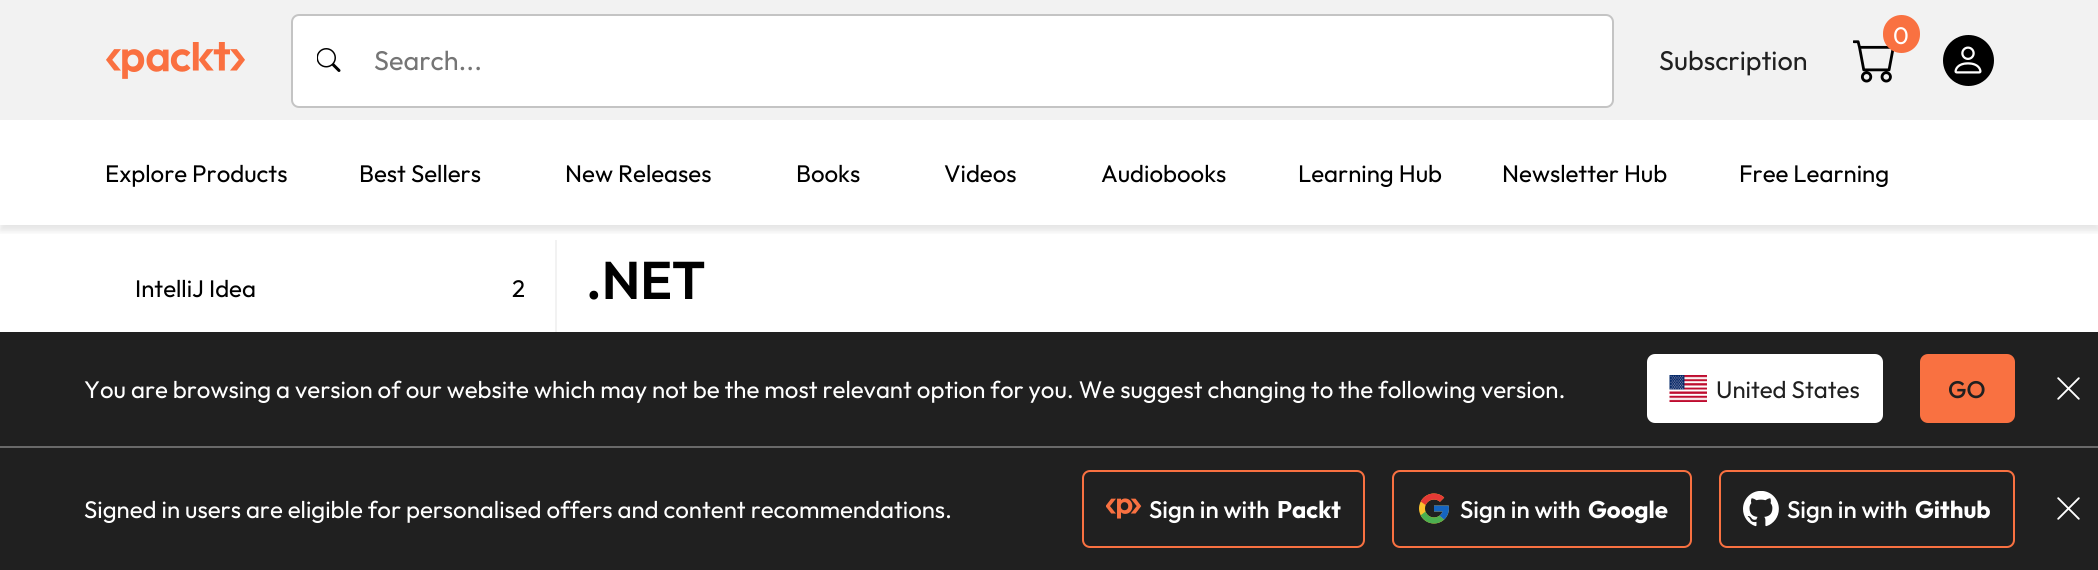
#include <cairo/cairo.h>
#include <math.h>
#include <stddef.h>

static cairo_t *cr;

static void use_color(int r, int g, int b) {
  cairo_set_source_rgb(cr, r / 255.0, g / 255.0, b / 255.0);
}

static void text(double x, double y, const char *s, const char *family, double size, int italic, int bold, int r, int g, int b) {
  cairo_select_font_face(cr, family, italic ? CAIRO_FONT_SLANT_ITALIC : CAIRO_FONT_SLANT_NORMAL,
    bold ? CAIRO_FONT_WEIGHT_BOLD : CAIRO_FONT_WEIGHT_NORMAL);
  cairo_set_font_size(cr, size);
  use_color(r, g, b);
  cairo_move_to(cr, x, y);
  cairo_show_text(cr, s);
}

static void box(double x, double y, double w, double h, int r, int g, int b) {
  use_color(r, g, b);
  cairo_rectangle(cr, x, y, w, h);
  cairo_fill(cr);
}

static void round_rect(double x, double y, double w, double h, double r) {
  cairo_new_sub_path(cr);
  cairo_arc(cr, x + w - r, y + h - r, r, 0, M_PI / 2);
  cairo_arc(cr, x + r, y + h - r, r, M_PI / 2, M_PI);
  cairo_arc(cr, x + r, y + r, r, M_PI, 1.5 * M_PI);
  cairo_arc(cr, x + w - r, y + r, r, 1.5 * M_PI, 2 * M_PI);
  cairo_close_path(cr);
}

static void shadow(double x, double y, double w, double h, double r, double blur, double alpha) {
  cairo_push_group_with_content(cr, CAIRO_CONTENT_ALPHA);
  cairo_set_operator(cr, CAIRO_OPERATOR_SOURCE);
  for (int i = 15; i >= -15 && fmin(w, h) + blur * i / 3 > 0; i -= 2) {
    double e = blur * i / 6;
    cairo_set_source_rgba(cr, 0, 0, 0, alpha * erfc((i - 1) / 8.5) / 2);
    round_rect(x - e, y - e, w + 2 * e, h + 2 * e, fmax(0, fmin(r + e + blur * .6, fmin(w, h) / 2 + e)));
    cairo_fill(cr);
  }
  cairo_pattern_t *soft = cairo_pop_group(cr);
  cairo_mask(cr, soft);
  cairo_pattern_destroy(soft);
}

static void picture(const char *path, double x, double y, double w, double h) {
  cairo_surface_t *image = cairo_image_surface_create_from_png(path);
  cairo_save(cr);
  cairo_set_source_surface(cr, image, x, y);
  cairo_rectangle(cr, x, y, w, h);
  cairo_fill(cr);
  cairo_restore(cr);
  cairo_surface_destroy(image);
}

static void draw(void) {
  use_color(255, 255, 255);
  cairo_paint(cr);
  box(555, 240, 2, 92, 242, 242, 242);
  cairo_save(cr);
  cairo_rectangle(cr, 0, 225, 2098, 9);
  cairo_clip(cr);
  use_color(0, 0, 0);
  shadow(0, 126, 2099, 105, 0, 3, 0.1);
  cairo_restore(cr);
  box(0, 0, 2098, 120, 242, 242, 242);
  picture("img_01.png", 106, 42, 139, 37);
  use_color(255, 255, 255);
  round_rect(292, 15, 1321, 92, 7);
  cairo_fill_preserve(cr);
  use_color(196, 196, 196);
  cairo_stroke(cr);
  picture("img_02.png", 317, 48, 24, 24);
  picture("img_03.png", 1853, 40, 41, 43);
  use_color(249, 113, 65);
  round_rect(1883, 15, 37, 38, 18.5);
  cairo_fill(cr);
  use_color(0, 0, 0);
  cairo_arc(cr, 1968.5, 60.5, 25.5, 0, 2 * M_PI);
  cairo_fill(cr);
  picture("img_04.png", 1954, 46, 28, 28);
  box(0, 332, 2098, 238, 32, 32, 32);
  use_color(255, 255, 255);
  round_rect(1647, 354, 236, 69, 8);
  cairo_fill(cr);
  picture("img_05.png", 1669, 375, 38, 27);
  use_color(249, 113, 65);
  round_rect(1921, 355, 93, 67, 7);
  cairo_fill_preserve(cr);
  cairo_stroke(cr);
  picture("img_06.png", 2057, 377, 23, 23);
  box(0, 446, 2098, 2, 105, 105, 105);
  round_rect(1083, 471, 281, 76, 7);
  use_color(249, 113, 65);
  cairo_stroke(cr);
  picture("img_07.png", 1106, 498, 36, 21);
  round_rect(1393, 471, 298, 76, 7);
  cairo_stroke(cr);
  picture("img_08.png", 1419, 493, 30, 31);
  round_rect(1720, 471, 294, 76, 7);
  cairo_stroke(cr);
  picture("img_09.png", 1743, 491, 36, 36);
  picture("img_06.png", 2057, 497, 23, 23);
  text(374, 70, "Search...", "Outfit", 27, 0, 0, 117, 117, 117);
  text(1893, 44, "0", "Outfit", 24, 0, 0, 255, 255, 255);
  text(1659, 70, "Subscription", "Outfit", 27, 0, 0, 32, 32, 32);
  text(105, 182, "Explore Products", "Outfit", 24, 0, 0, 0, 0, 0);
  text(359, 182, "Best Sellers", "Outfit", 24, 0, 0, 0, 0, 0);
  text(565, 182, "New Releases", "Outfit", 24, 0, 0, 0, 0, 0);
  text(796, 182, "Books", "Outfit", 24, 0, 0, 0, 0, 0);
  text(944, 182, "Videos", "Outfit", 24, 0, 0, 0, 0, 0);
  text(1101, 182, "Audiobooks", "Outfit", 24, 0, 0, 0, 0, 0);
  text(1298, 182, "Learning Hub", "Outfit", 24, 0, 0, 0, 0, 0);
  text(1502, 182, "Newsletter Hub", "Outfit", 24, 0, 0, 0, 0, 0);
  text(1739, 182, "Free Learning", "Outfit", 24, 0, 0, 0, 0, 0);
  text(135, 297, "IntelliJ Idea", "Outfit", 24, 0, 0, 0, 0, 0);
  text(512, 297, "2", "Outfit", 24, 0, 0, 0, 0, 0);
  text(586, 299, ".NET", "Outfit SemiBold", 53, 0, 0, 0, 0, 0);
  text(84, 398, "You are browsing a version of our website which may not be the most relevant option for you. We suggest changing to the following version.", "Outfit", 24, 0, 0, 255, 255, 255);
  text(1716, 398, "United States", "Outfit", 24, 0, 0, 32, 32, 32);
  text(1948, 398, "GO", "Outfit Medium", 24, 0, 0, 32, 32, 32);
  text(84, 518, "Signed in users are eligible for personalised offers and content recommendations.", "Outfit", 24, 0, 0, 255, 255, 255);
  text(1149, 518, "Sign in with", "Outfit Medium", 24, 0, 0, 255, 255, 255);
  text(1277, 518, "Packt", "Outfit", 24, 0, 1, 255, 255, 255);
  text(1460, 518, "Sign in with", "Outfit Medium", 24, 0, 0, 255, 255, 255);
  text(1588, 518, "Google", "Outfit", 24, 0, 1, 255, 255, 255);
  text(1787, 518, "Sign in with", "Outfit Medium", 24, 0, 0, 255, 255, 255);
  text(1915, 518, "Github", "Outfit", 24, 0, 1, 255, 255, 255);
}

int main(void) {
  cairo_surface_t *surface = cairo_image_surface_create(CAIRO_FORMAT_RGB24, 2098, 570);
  cr = cairo_create(surface);
  cairo_font_options_t *options = cairo_font_options_create();
  cairo_font_options_set_hint_metrics(options, CAIRO_HINT_METRICS_OFF);
  cairo_font_options_set_hint_style(options, CAIRO_HINT_STYLE_NONE);
  cairo_set_font_options(cr, options);
  cairo_set_miter_limit(cr, 4);
  draw();
  cairo_surface_write_to_png(surface, "out.png");
  cairo_font_options_destroy(options);
  cairo_destroy(cr);
  cairo_surface_destroy(surface);
  return 0;
}
